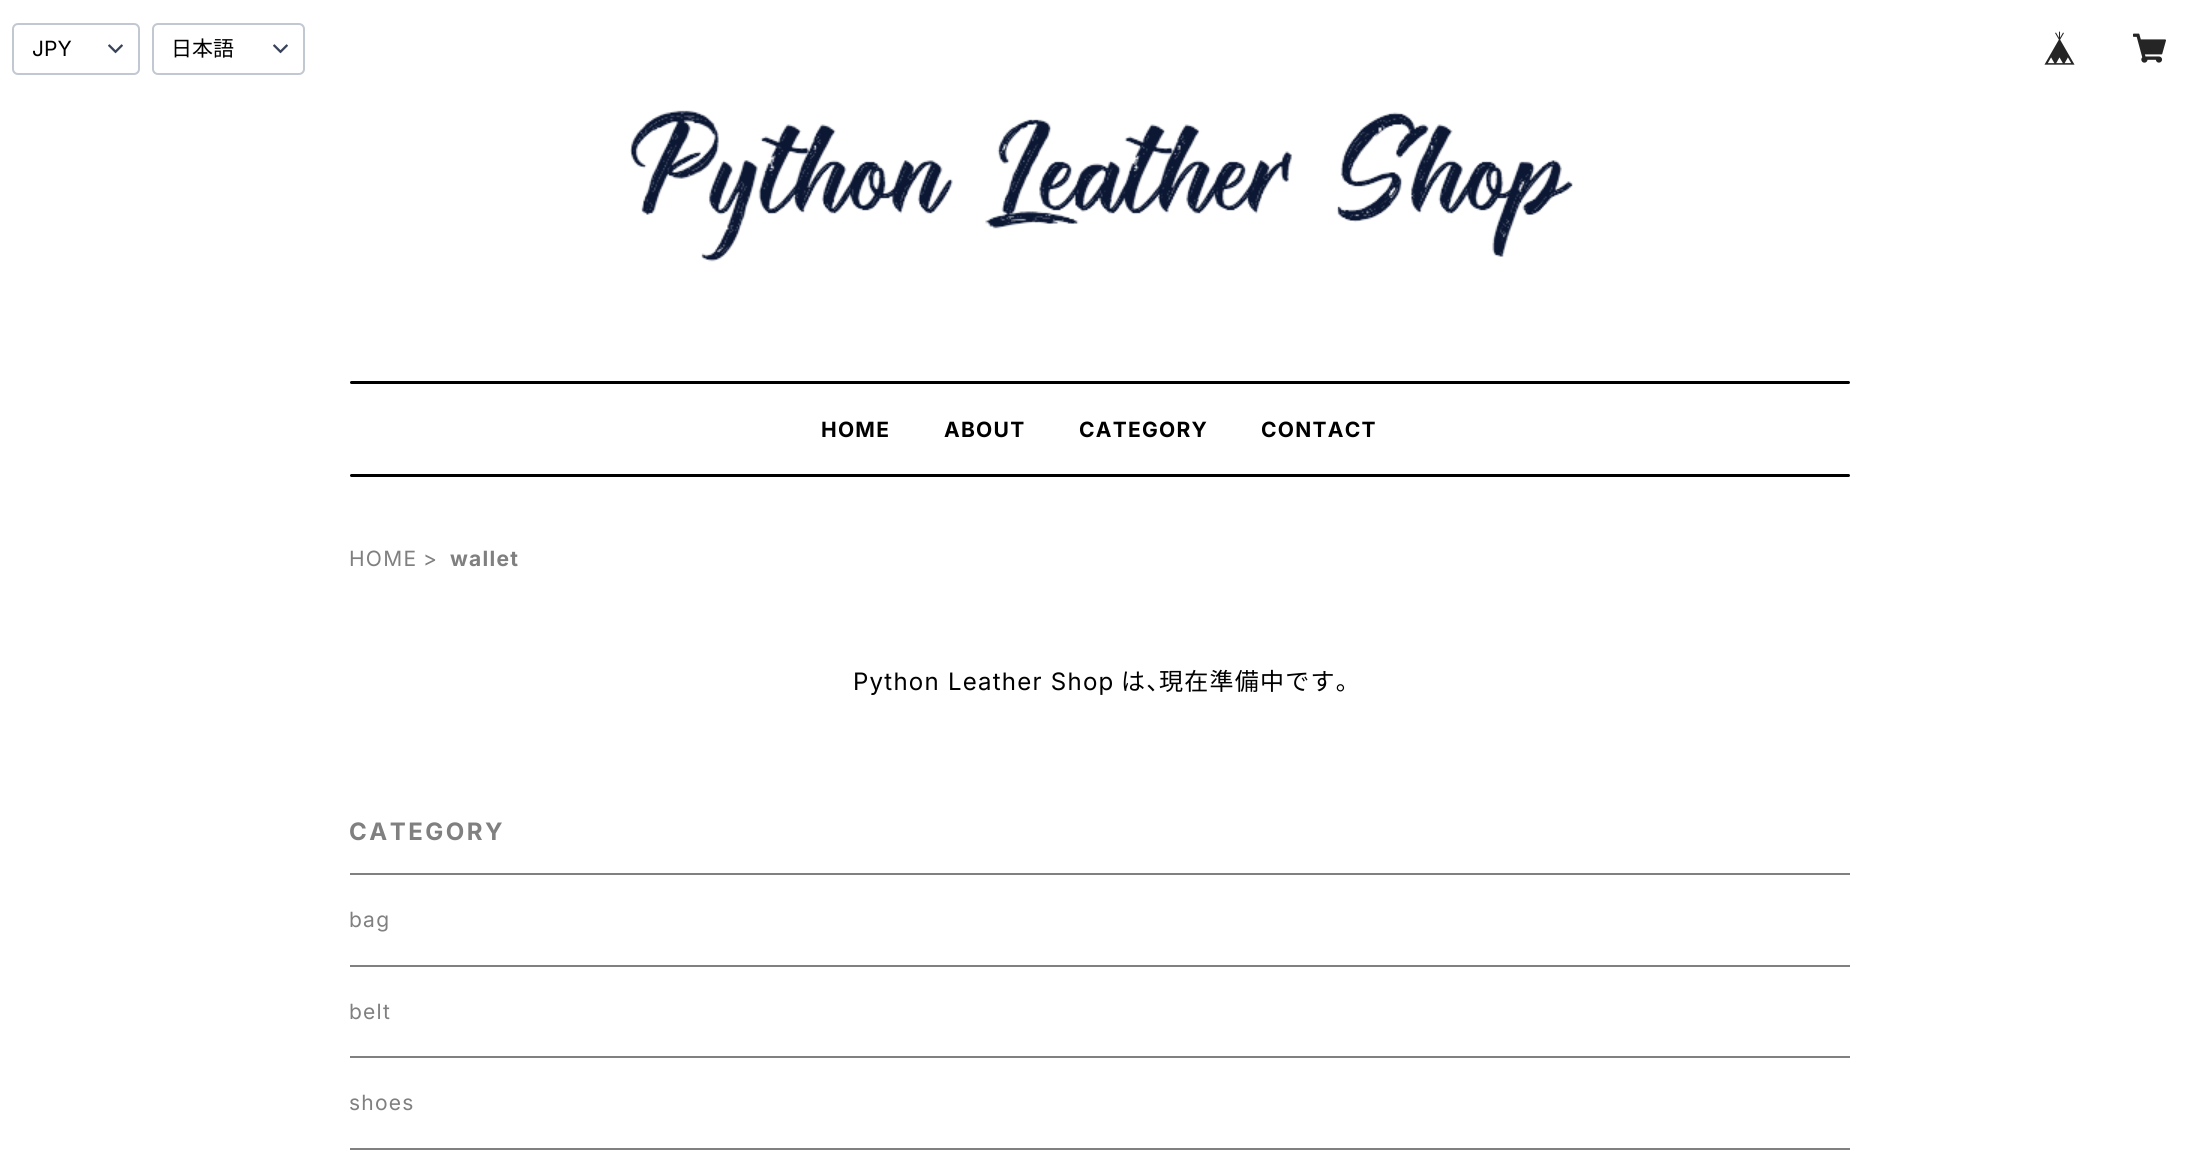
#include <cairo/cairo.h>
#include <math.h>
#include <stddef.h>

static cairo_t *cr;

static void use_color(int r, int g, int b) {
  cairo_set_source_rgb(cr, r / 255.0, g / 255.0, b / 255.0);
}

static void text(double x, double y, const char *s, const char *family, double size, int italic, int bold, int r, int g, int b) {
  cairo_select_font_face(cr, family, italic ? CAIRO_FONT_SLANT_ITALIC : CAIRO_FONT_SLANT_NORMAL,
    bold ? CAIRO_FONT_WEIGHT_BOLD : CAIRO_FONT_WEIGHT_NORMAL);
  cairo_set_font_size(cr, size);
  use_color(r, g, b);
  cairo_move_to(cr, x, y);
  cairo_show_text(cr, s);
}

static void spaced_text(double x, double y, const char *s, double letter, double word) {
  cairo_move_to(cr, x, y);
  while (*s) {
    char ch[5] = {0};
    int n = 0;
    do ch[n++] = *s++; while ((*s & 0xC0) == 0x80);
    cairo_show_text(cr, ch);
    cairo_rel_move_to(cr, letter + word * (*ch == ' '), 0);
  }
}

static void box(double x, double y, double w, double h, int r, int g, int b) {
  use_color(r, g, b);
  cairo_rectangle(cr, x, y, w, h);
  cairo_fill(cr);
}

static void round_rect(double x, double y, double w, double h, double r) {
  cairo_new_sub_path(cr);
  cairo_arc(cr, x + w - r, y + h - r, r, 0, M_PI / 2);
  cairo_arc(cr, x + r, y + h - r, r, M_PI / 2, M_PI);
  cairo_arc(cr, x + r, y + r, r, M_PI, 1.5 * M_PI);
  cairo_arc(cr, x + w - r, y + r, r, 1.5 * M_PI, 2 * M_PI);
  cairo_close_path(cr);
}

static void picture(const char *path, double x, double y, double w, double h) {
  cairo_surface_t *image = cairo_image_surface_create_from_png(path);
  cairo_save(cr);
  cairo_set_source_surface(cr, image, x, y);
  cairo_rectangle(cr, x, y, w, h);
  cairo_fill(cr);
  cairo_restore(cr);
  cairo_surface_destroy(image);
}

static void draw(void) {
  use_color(255, 255, 255);
  cairo_paint(cr);
  round_rect(13, 24, 126, 50, 5);
  use_color(194, 200, 210);
  cairo_stroke(cr);
  picture("img_01.png", 108, 44, 15, 10);
  round_rect(153, 24, 151, 50, 5);
  cairo_stroke(cr);
  picture("img_01.png", 273, 44, 15, 10);
  picture("img_02.png", 2044, 31, 31, 34);
  picture("img_03.png", 2133, 33, 33, 30);
  picture("img_04.png", 630, 110, 943, 152);
  use_color(0, 0, 0);
  round_rect(350, 381, 1500, 3, 1.5);
  cairo_fill(cr);
  round_rect(350, 474, 1500, 3, 1.5);
  cairo_fill(cr);
  box(350, 873, 1500, 2, 128, 128, 128);
  box(350, 965, 1500, 2, 128, 128, 128);
  box(350, 1056, 1500, 2, 128, 128, 128);
  box(350, 1148, 1500, 2, 128, 128, 128);
  text(32, 56, "JPY", "Inter", 21, 0, 0, 0, 0, 0);
  text(171, 56, "日本語", "Noto Sans JP", 21, 0, 0, 0, 0, 0);
  cairo_select_font_face(cr, "Inter", CAIRO_FONT_SLANT_NORMAL, CAIRO_FONT_WEIGHT_BOLD);
  spaced_text(821, 437, "HOME", 1.25, 0);
  spaced_text(944, 437, "ABOUT", 1.25, 0);
  spaced_text(1079, 437, "CATEGORY", 1.25, 0);
  spaced_text(1261, 437, "CONTACT", 1.25, 0);
  cairo_select_font_face(cr, "Inter", CAIRO_FONT_SLANT_NORMAL, CAIRO_FONT_WEIGHT_NORMAL);
  use_color(128, 128, 128);
  spaced_text(349, 566, "HOME", 1.25, 0);
  spaced_text(423, 566, ">", 1.25, 0);
  cairo_select_font_face(cr, "Inter", CAIRO_FONT_SLANT_NORMAL, CAIRO_FONT_WEIGHT_BOLD);
  spaced_text(450, 566, "wallet", 1.25, 0);
  cairo_select_font_face(cr, "Inter", CAIRO_FONT_SLANT_NORMAL, CAIRO_FONT_WEIGHT_NORMAL);
  cairo_set_font_size(cr, 24);
  use_color(0, 0, 0);
  spaced_text(853, 690, "Python Leather Shop", 1.25, 0);
  cairo_select_font_face(cr, "Noto Sans JP", CAIRO_FONT_SLANT_NORMAL, CAIRO_FONT_WEIGHT_NORMAL);
  spaced_text(1121, 690, "は、", 1.25, 0);
  spaced_text(1159, 690, "現在準備中です。", 1.25, 0);
  cairo_select_font_face(cr, "Inter", CAIRO_FONT_SLANT_NORMAL, CAIRO_FONT_WEIGHT_BOLD);
  use_color(128, 128, 128);
  spaced_text(349, 840, "CATEGORY", 2.5, 0);
  cairo_select_font_face(cr, "Inter", CAIRO_FONT_SLANT_NORMAL, CAIRO_FONT_WEIGHT_NORMAL);
  cairo_set_font_size(cr, 21);
  spaced_text(349, 927, "bag", 1.25, 0);
  spaced_text(349, 1019, "belt", 1.25, 0);
  spaced_text(349, 1110, "shoes", 1.25, 0);
}

int main(void) {
  cairo_surface_t *surface = cairo_image_surface_create(CAIRO_FORMAT_RGB24, 2197, 1151);
  cr = cairo_create(surface);
  cairo_font_options_t *options = cairo_font_options_create();
  cairo_font_options_set_hint_metrics(options, CAIRO_HINT_METRICS_OFF);
  cairo_font_options_set_hint_style(options, CAIRO_HINT_STYLE_NONE);
  cairo_set_font_options(cr, options);
  cairo_set_miter_limit(cr, 4);
  draw();
  cairo_surface_write_to_png(surface, "out.png");
  cairo_font_options_destroy(options);
  cairo_destroy(cr);
  cairo_surface_destroy(surface);
  return 0;
}
